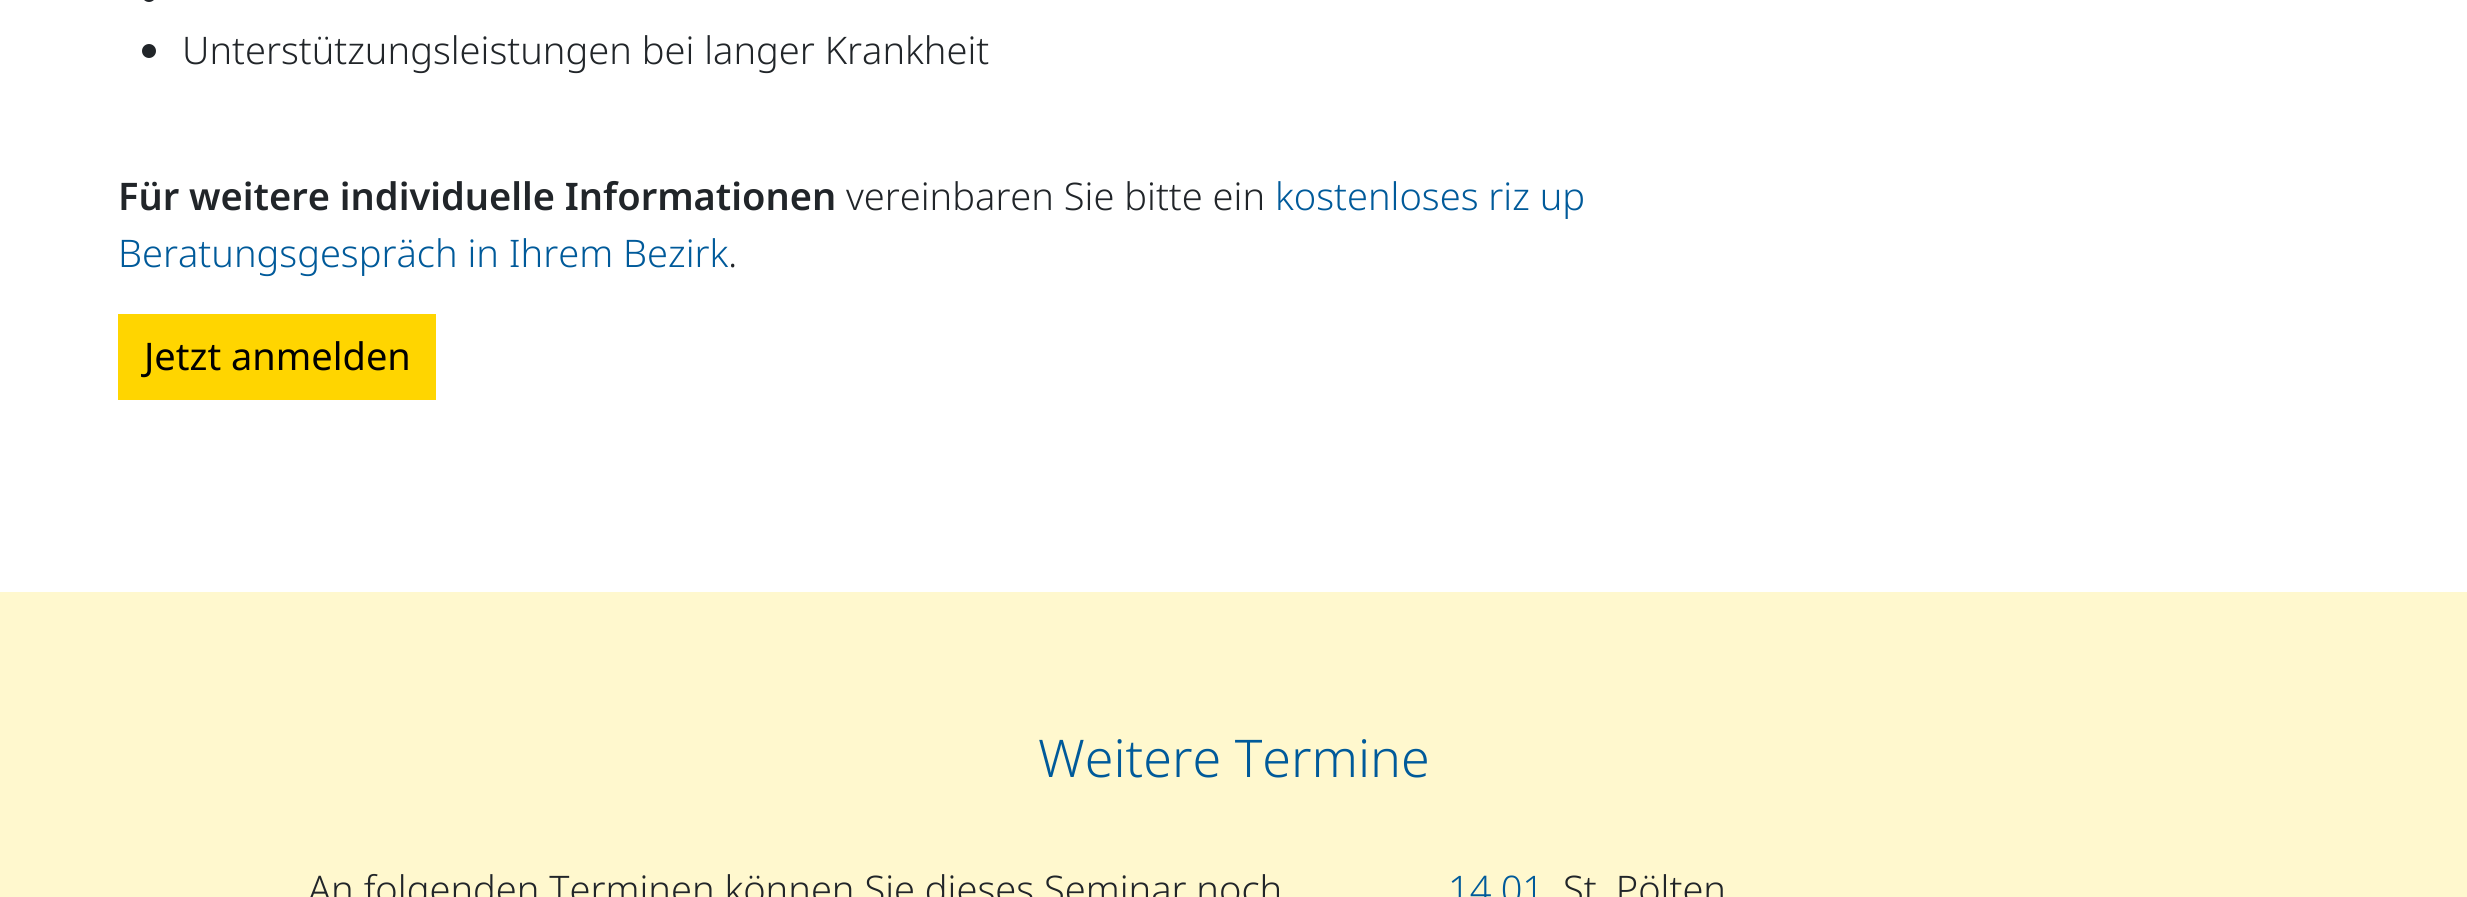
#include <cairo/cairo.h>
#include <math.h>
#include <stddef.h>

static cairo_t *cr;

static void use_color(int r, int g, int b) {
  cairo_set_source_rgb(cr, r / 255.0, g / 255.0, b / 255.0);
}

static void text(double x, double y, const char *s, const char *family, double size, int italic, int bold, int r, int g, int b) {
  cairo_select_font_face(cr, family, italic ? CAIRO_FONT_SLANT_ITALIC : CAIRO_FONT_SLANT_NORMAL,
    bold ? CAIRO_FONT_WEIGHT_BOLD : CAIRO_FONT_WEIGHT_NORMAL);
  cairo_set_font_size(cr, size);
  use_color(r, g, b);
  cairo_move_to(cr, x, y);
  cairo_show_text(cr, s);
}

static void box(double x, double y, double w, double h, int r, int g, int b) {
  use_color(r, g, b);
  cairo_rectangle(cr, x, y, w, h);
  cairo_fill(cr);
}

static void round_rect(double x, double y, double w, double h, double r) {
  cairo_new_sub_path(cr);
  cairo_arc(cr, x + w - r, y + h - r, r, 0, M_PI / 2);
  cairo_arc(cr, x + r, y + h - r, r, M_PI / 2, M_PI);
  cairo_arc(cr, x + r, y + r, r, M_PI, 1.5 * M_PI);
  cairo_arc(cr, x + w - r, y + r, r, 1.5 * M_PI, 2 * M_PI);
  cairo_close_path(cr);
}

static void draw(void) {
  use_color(255, 255, 255);
  cairo_paint(cr);
  use_color(33, 37, 41);
  round_rect(142, -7, 14, 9, 7);
  cairo_fill(cr);
  cairo_arc(cr, 149, 51, 7, 0, 2 * M_PI);
  cairo_fill(cr);
  box(118, 314, 318, 86, 255, 213, 0);
  box(0, 592, 2467, 305, 255, 248, 206);
  text(182, 64, "Unterstützungsleistungen bei langer Krankheit", "Noto Sans Light", 38, 0, 0, 33, 37, 41);
  text(118, 210, "Für weitere individuelle Informationen", "Noto Sans SemiBold", 38, 0, 0, 33, 37, 41);
  text(846, 210, "vereinbaren Sie bitte ein", "Noto Sans Light", 38, 0, 0, 33, 37, 41);
  text(1275, 210, "kostenloses riz up", "Noto Sans Light", 38, 0, 0, 0, 90, 154);
  text(118, 267, "Beratungsgespräch in Ihrem Bezirk", "Noto Sans Light", 38, 0, 0, 0, 90, 154);
  text(728, 267, ".", "Noto Sans Light", 38, 0, 0, 33, 37, 41);
  text(144, 370, "Jetzt anmelden", "Noto Sans", 38, 0, 0, 0, 0, 0);
  text(1038, 777, "Weitere Termine", "Noto Sans Light", 52, 0, 0, 0, 90, 154);
  text(308, 903, "An folgenden Terminen können Sie dieses Seminar noch", "Noto Sans Light", 38, 0, 0, 33, 37, 41);
  text(1448, 903, "14.01", "Noto Sans Light", 38, 0, 0, 0, 90, 154);
  text(1563, 903, "St. Pölten", "Noto Sans Light", 38, 0, 0, 33, 37, 41);
}

int main(void) {
  cairo_surface_t *surface = cairo_image_surface_create(CAIRO_FORMAT_RGB24, 2467, 897);
  cr = cairo_create(surface);
  cairo_font_options_t *options = cairo_font_options_create();
  cairo_font_options_set_hint_metrics(options, CAIRO_HINT_METRICS_OFF);
  cairo_font_options_set_hint_style(options, CAIRO_HINT_STYLE_NONE);
  cairo_set_font_options(cr, options);
  cairo_set_miter_limit(cr, 4);
  draw();
  cairo_surface_write_to_png(surface, "out.png");
  cairo_font_options_destroy(options);
  cairo_destroy(cr);
  cairo_surface_destroy(surface);
  return 0;
}
